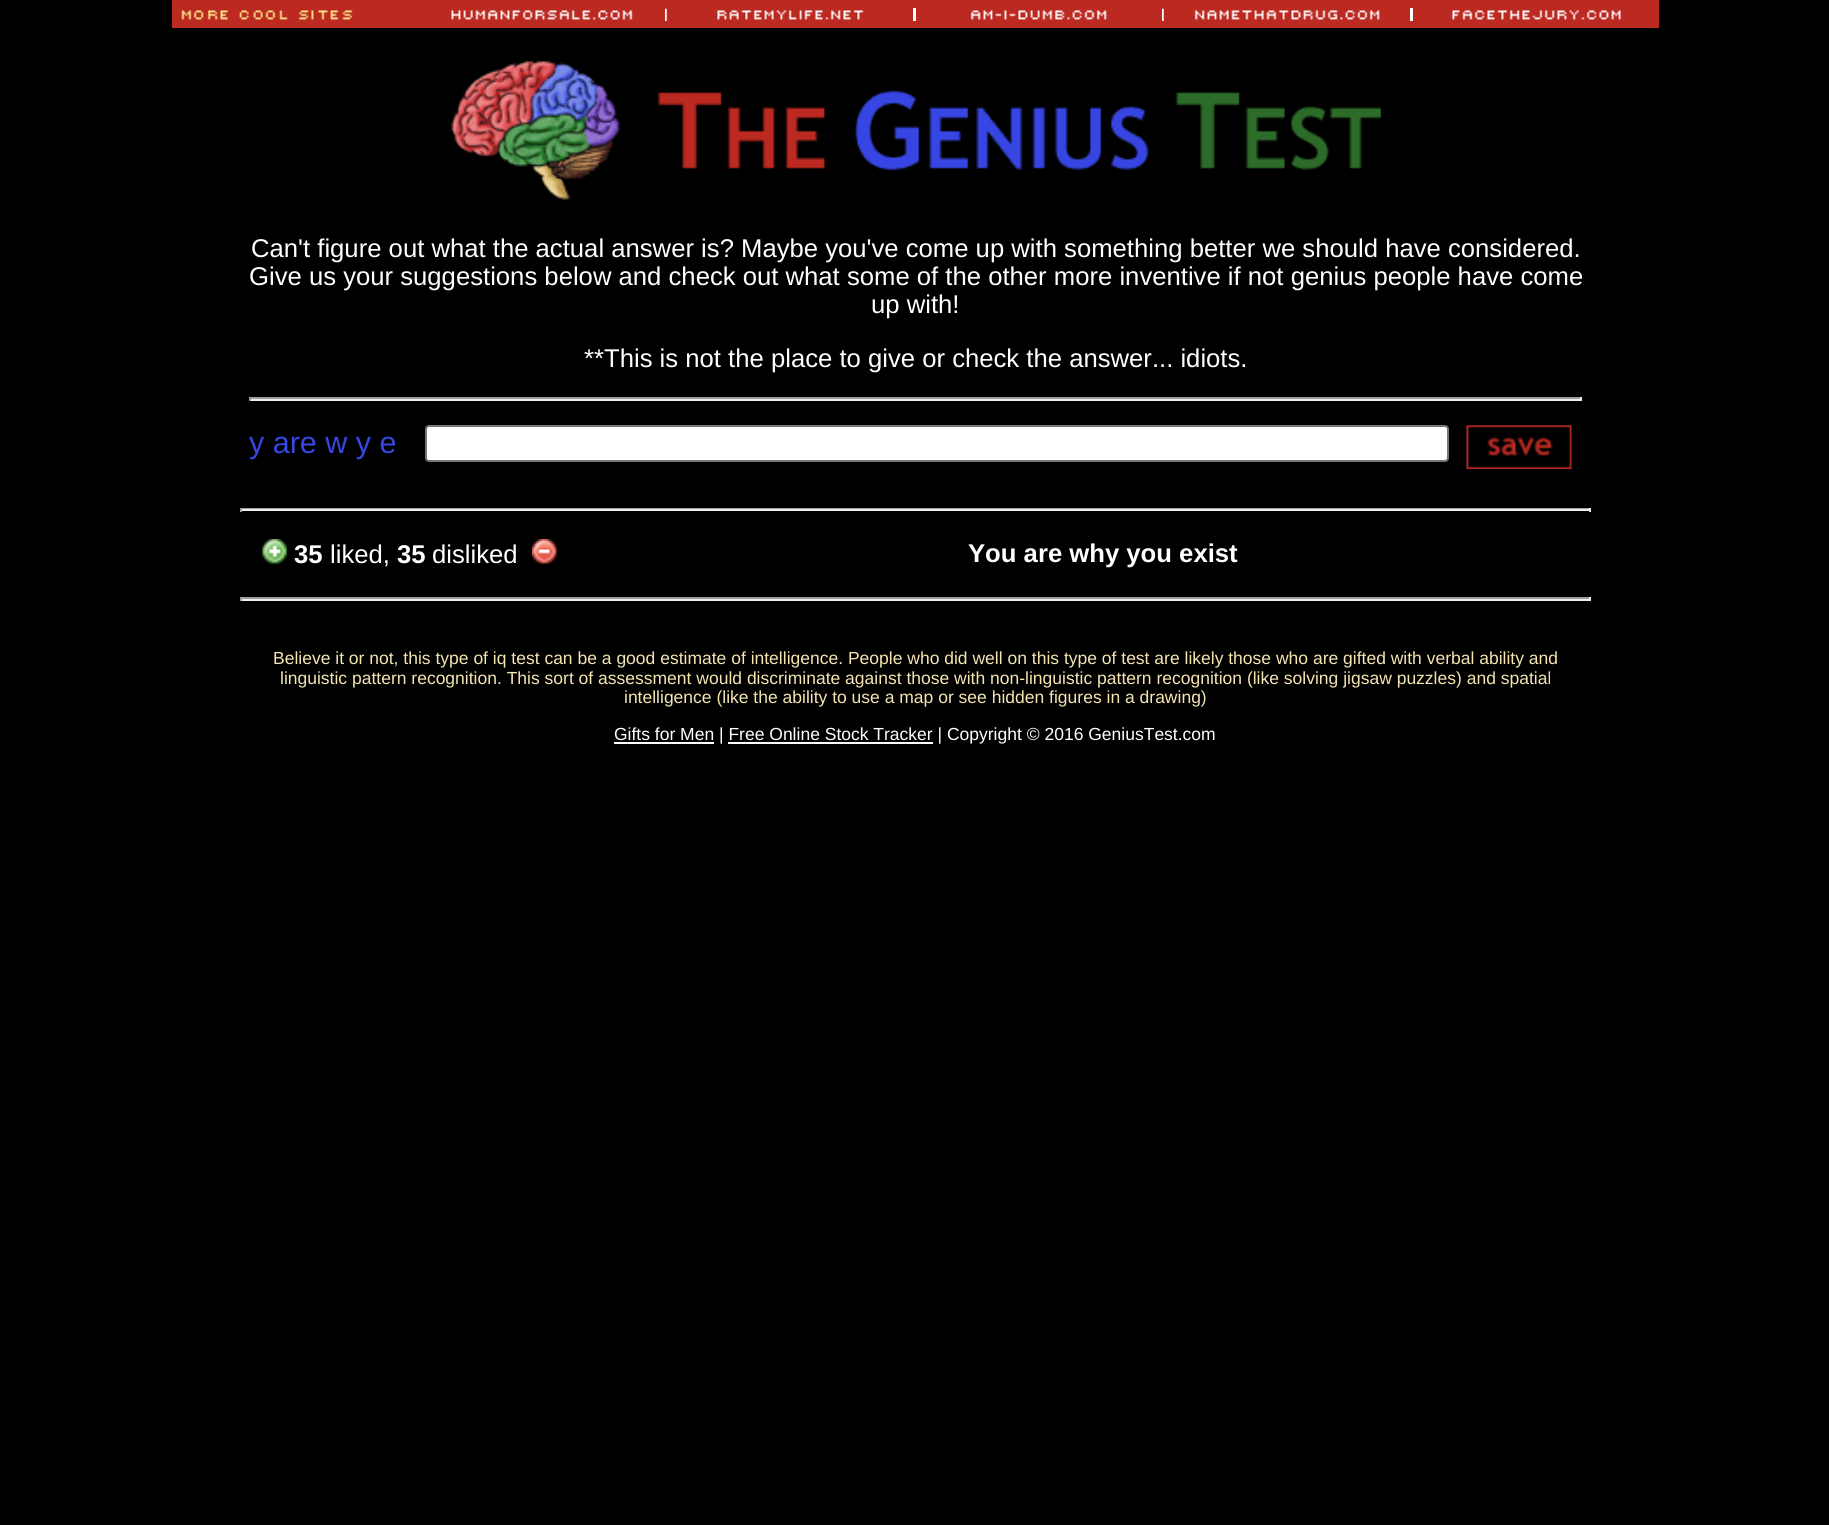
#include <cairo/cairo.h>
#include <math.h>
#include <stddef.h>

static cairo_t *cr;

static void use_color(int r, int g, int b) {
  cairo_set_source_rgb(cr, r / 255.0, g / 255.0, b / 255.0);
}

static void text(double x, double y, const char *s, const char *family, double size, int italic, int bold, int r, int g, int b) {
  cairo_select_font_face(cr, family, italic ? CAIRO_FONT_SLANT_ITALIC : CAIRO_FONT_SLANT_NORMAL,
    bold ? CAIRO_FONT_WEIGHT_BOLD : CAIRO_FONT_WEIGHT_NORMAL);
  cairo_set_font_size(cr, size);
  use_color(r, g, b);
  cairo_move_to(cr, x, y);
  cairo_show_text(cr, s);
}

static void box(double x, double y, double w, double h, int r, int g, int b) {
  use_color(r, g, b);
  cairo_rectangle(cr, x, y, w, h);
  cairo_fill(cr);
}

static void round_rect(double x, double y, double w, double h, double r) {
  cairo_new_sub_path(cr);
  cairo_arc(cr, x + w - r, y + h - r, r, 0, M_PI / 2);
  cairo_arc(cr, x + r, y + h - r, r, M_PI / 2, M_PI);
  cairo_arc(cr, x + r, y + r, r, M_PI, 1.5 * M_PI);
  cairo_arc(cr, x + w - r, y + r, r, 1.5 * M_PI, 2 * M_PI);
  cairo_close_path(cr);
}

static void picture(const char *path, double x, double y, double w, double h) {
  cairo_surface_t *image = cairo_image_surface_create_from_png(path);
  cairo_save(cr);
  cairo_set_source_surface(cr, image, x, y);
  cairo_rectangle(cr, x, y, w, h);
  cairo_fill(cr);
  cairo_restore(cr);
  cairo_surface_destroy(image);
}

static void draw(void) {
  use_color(0, 0, 0);
  cairo_paint(cr);
  box(172, 0, 1487, 28, 187, 41, 33);
  picture("img_01.png", 181, 10, 172, 10);
  picture("img_02.png", 451, 10, 182, 10);
  picture("img_03.png", 665, 8, 2, 13);
  picture("img_04.png", 717, 10, 147, 10);
  box(913, 8, 3, 13, 255, 255, 255);
  picture("img_05.png", 970, 10, 137, 10);
  picture("img_03.png", 1162, 8, 2, 13);
  picture("img_06.png", 1194, 10, 186, 10);
  box(1410, 8, 3, 13, 255, 255, 255);
  picture("img_07.png", 1452, 10, 169, 10);
  picture("img_08.png", 451, 60, 930, 140);
  box(249, 397, 1333, 2, 159, 159, 159);
  box(1580, 397, 2, 4, 238, 238, 238);
  box(249, 399, 1333, 2, 238, 238, 238);
  box(249, 397, 2, 4, 159, 159, 159);
  use_color(255, 255, 255);
  round_rect(426, 426, 1022, 35, 3);
  cairo_fill_preserve(cr);
  use_color(118, 118, 118);
  cairo_stroke(cr);
  picture("img_09.png", 1466, 425, 106, 44);
  box(240, 508, 1351, 1, 159, 159, 159);
  box(1589, 508, 2, 4, 238, 238, 238);
  box(240, 509, 1351, 2, 238, 238, 238);
  box(240, 508, 2, 4, 159, 159, 159);
  picture("img_10.png", 262, 539, 25, 25);
  picture("img_11.png", 532, 539, 25, 25);
  box(240, 597, 1351, 2, 159, 159, 159);
  box(1589, 597, 2, 4, 238, 238, 238);
  box(240, 599, 1351, 2, 238, 238, 238);
  box(240, 597, 2, 4, 159, 159, 159);
  box(614, 742, 100, 2, 255, 255, 255);
  box(728, 742, 205, 2, 255, 255, 255);
  text(251, 257, "Can't figure out what the actual answer is?", "Liberation Sans", 25.67, 0, 0, 255, 255, 255);
  text(741, 257, "Maybe you've come up with something better we should have considered.", "Liberation Sans", 25.67, 0, 0, 255, 255, 255);
  text(249, 285, "Give us your suggestions below and check out what some of the other more inventive if not genius people have come", "Liberation Sans", 25.67, 0, 0, 255, 255, 255);
  text(871, 313, "up with!", "Liberation Sans", 25.67, 0, 0, 255, 255, 255);
  text(584, 367, "**This is not the place to give or check the answer... idiots.", "Liberation Sans", 25.67, 0, 0, 255, 255, 255);
  text(249, 453, "y are w y e", "Liberation Sans", 30.5, 0, 0, 55, 70, 226);
  text(294, 563, "35", "Liberation Sans", 25.67, 0, 1, 255, 255, 255);
  text(330, 563, "liked,", "Liberation Sans", 25.67, 0, 0, 255, 255, 255);
  text(397, 563, "35", "Liberation Sans", 25.67, 0, 1, 255, 255, 255);
  text(432, 563, "disliked", "Liberation Sans", 25.67, 0, 0, 255, 255, 255);
  text(968, 562, "You are why you exist", "Liberation Sans", 25.67, 0, 1, 255, 255, 255);
  text(273, 664, "Believe it or not, this type of iq test can be a good estimate of intelligence. People who did well on this type of test are likely those who are gifted with verbal ability and", "Liberation Sans", 17.5, 0, 0, 244, 229, 177);
  text(280, 684, "linguistic pattern recognition. This sort of assessment would discriminate against those with non-linguistic pattern recognition (like solving jigsaw puzzles) and spatial", "Liberation Sans", 17.5, 0, 0, 244, 229, 177);
  text(624, 703, "intelligence (like the ability to use a map or see hidden figures in a drawing)", "Liberation Sans", 17.5, 0, 0, 244, 229, 177);
  text(614, 740, "Gifts for Men | Free Online Stock Tracker | Copyright © 2016 GeniusTest.com", "Liberation Sans", 17.5, 0, 0, 255, 255, 255);
}

int main(void) {
  cairo_surface_t *surface = cairo_image_surface_create(CAIRO_FORMAT_RGB24, 1829, 1525);
  cr = cairo_create(surface);
  cairo_font_options_t *options = cairo_font_options_create();
  cairo_font_options_set_hint_metrics(options, CAIRO_HINT_METRICS_OFF);
  cairo_font_options_set_hint_style(options, CAIRO_HINT_STYLE_NONE);
  cairo_set_font_options(cr, options);
  cairo_set_miter_limit(cr, 4);
  draw();
  cairo_surface_write_to_png(surface, "out.png");
  cairo_font_options_destroy(options);
  cairo_destroy(cr);
  cairo_surface_destroy(surface);
  return 0;
}
